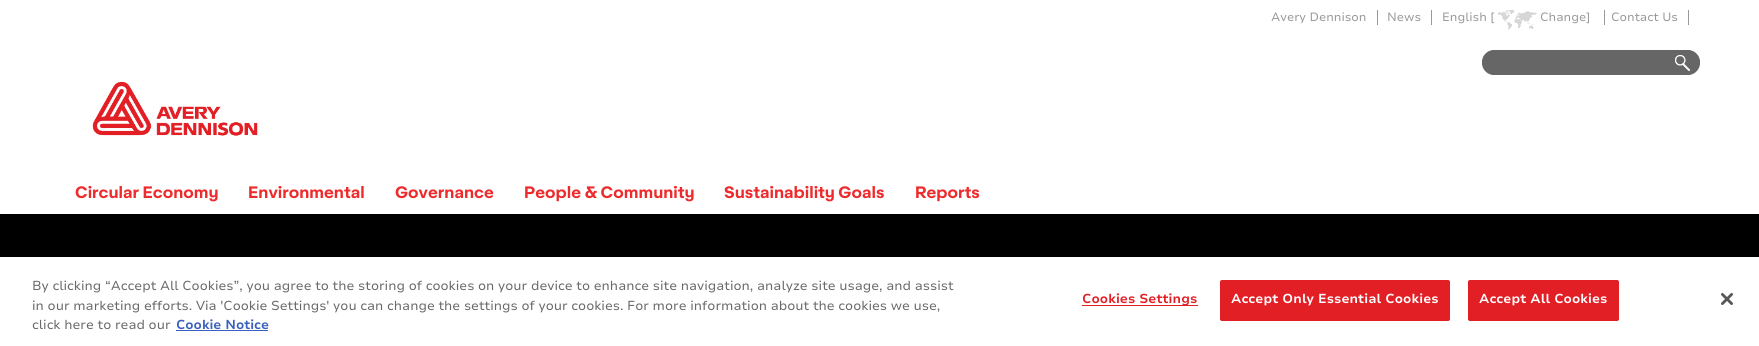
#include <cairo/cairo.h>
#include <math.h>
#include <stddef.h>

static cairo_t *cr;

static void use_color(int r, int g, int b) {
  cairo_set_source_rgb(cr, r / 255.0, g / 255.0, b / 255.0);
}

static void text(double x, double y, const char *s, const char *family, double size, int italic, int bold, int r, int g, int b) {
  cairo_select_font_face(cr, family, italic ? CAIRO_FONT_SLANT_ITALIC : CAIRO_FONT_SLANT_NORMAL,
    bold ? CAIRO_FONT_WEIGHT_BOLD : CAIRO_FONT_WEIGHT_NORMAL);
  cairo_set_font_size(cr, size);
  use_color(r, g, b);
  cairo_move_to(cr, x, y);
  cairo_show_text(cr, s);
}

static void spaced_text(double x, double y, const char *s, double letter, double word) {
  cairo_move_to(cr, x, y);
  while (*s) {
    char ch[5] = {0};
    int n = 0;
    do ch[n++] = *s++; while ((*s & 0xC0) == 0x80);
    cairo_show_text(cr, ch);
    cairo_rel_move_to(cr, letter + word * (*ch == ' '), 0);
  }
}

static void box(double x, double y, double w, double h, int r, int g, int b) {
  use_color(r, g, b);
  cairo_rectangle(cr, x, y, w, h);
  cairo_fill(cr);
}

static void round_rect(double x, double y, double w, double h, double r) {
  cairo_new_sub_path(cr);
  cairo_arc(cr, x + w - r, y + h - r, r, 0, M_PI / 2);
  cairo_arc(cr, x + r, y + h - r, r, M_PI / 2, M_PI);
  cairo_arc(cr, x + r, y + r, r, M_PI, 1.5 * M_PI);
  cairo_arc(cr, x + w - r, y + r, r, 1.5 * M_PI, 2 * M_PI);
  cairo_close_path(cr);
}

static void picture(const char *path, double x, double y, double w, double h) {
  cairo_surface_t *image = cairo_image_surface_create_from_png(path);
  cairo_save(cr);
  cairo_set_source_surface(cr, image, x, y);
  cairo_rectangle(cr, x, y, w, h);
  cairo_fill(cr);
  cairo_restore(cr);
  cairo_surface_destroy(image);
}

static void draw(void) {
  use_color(255, 255, 255);
  cairo_paint(cr);
  box(1377, 10, 1, 15, 153, 153, 153);
  box(1431, 10, 1, 15, 153, 153, 153);
  picture("img_01.png", 1498, 10, 39, 20);
  box(1688, 10, 1, 15, 153, 153, 153);
  box(1604, 10, 1, 15, 153, 153, 153);
  picture("img_02.png", 1482, 50, 164, 25);
  picture("img_03.png", 1646, 50, 54, 25);
  picture("img_04.png", 92, 81, 166, 55);
  box(0, 214, 1759, 43, 0, 0, 0);
  box(176, 330, 92, 1, 56, 96, 190);
  box(1082, 305, 116, 1, 227, 31, 38);
  round_rect(1220.5, 280.5, 229, 40, 1.5);
  cairo_fill_preserve(cr);
  cairo_set_line_width(cr, 1);
  cairo_stroke(cr);
  round_rect(1468.5, 280.5, 150, 40, 1.5);
  cairo_fill_preserve(cr);
  cairo_stroke(cr);
  picture("img_05.png", 1721, 293, 12, 12);
  text(1271, 21, "Avery Dennison", "Nunito Sans", 12, 0, 0, 153, 153, 153);
  text(1387, 21, "News", "Nunito Sans", 12, 0, 0, 153, 153, 153);
  text(1442, 21, "English [", "Nunito Sans", 12, 0, 0, 153, 153, 153);
  text(1540, 21, "Change]", "Nunito Sans", 12, 0, 0, 153, 153, 153);
  text(1611, 21, "Contact Us", "Nunito Sans", 12, 0, 0, 153, 153, 153);
  text(75, 198, "Circular Economy", "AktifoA", 16, 0, 1, 238, 43, 44);
  text(248, 198, "Environmental", "AktifoA", 16, 0, 1, 238, 43, 44);
  text(395, 198, "Governance", "AktifoA", 16, 0, 1, 238, 43, 44);
  text(524, 198, "People & Community", "AktifoA", 16, 0, 1, 238, 43, 44);
  text(724, 198, "Sustainability Goals", "AktifoA", 16, 0, 1, 238, 43, 44);
  text(915, 198, "Reports", "AktifoA", 16, 0, 1, 238, 43, 44);
  text(32, 290, "By clicking “Accept All Cookies”, you agree to the storing of cookies on your device to enhance site navigation, analyze site usage, and assist", "Nunito Sans", 13, 0, 0, 105, 105, 105);
  text(32, 310, "in our marketing efforts. Via 'Cookie Settings' you can change the settings of your cookies. For more information about the cookies we use,", "Nunito Sans", 13, 0, 0, 105, 105, 105);
  text(32, 329, "click here to read our", "Nunito Sans", 13, 0, 0, 105, 105, 105);
  text(176, 329, "Cookie Notice", "Nunito Sans", 13, 0, 1, 56, 96, 190);
  use_color(227, 31, 38);
  spaced_text(1082, 303, "Cookies Settings", 0.1, 0);
  use_color(255, 255, 255);
  spaced_text(1231, 303, "Accept Only Essential Cookies", 0.1, 0);
  spaced_text(1479, 303, "Accept All Cookies", 0.1, 0);
}

int main(void) {
  cairo_surface_t *surface = cairo_image_surface_create(CAIRO_FORMAT_RGB24, 1759, 346);
  cr = cairo_create(surface);
  cairo_font_options_t *options = cairo_font_options_create();
  cairo_font_options_set_hint_metrics(options, CAIRO_HINT_METRICS_OFF);
  cairo_font_options_set_hint_style(options, CAIRO_HINT_STYLE_NONE);
  cairo_set_font_options(cr, options);
  cairo_set_miter_limit(cr, 4);
  draw();
  cairo_surface_write_to_png(surface, "out.png");
  cairo_font_options_destroy(options);
  cairo_destroy(cr);
  cairo_surface_destroy(surface);
  return 0;
}
